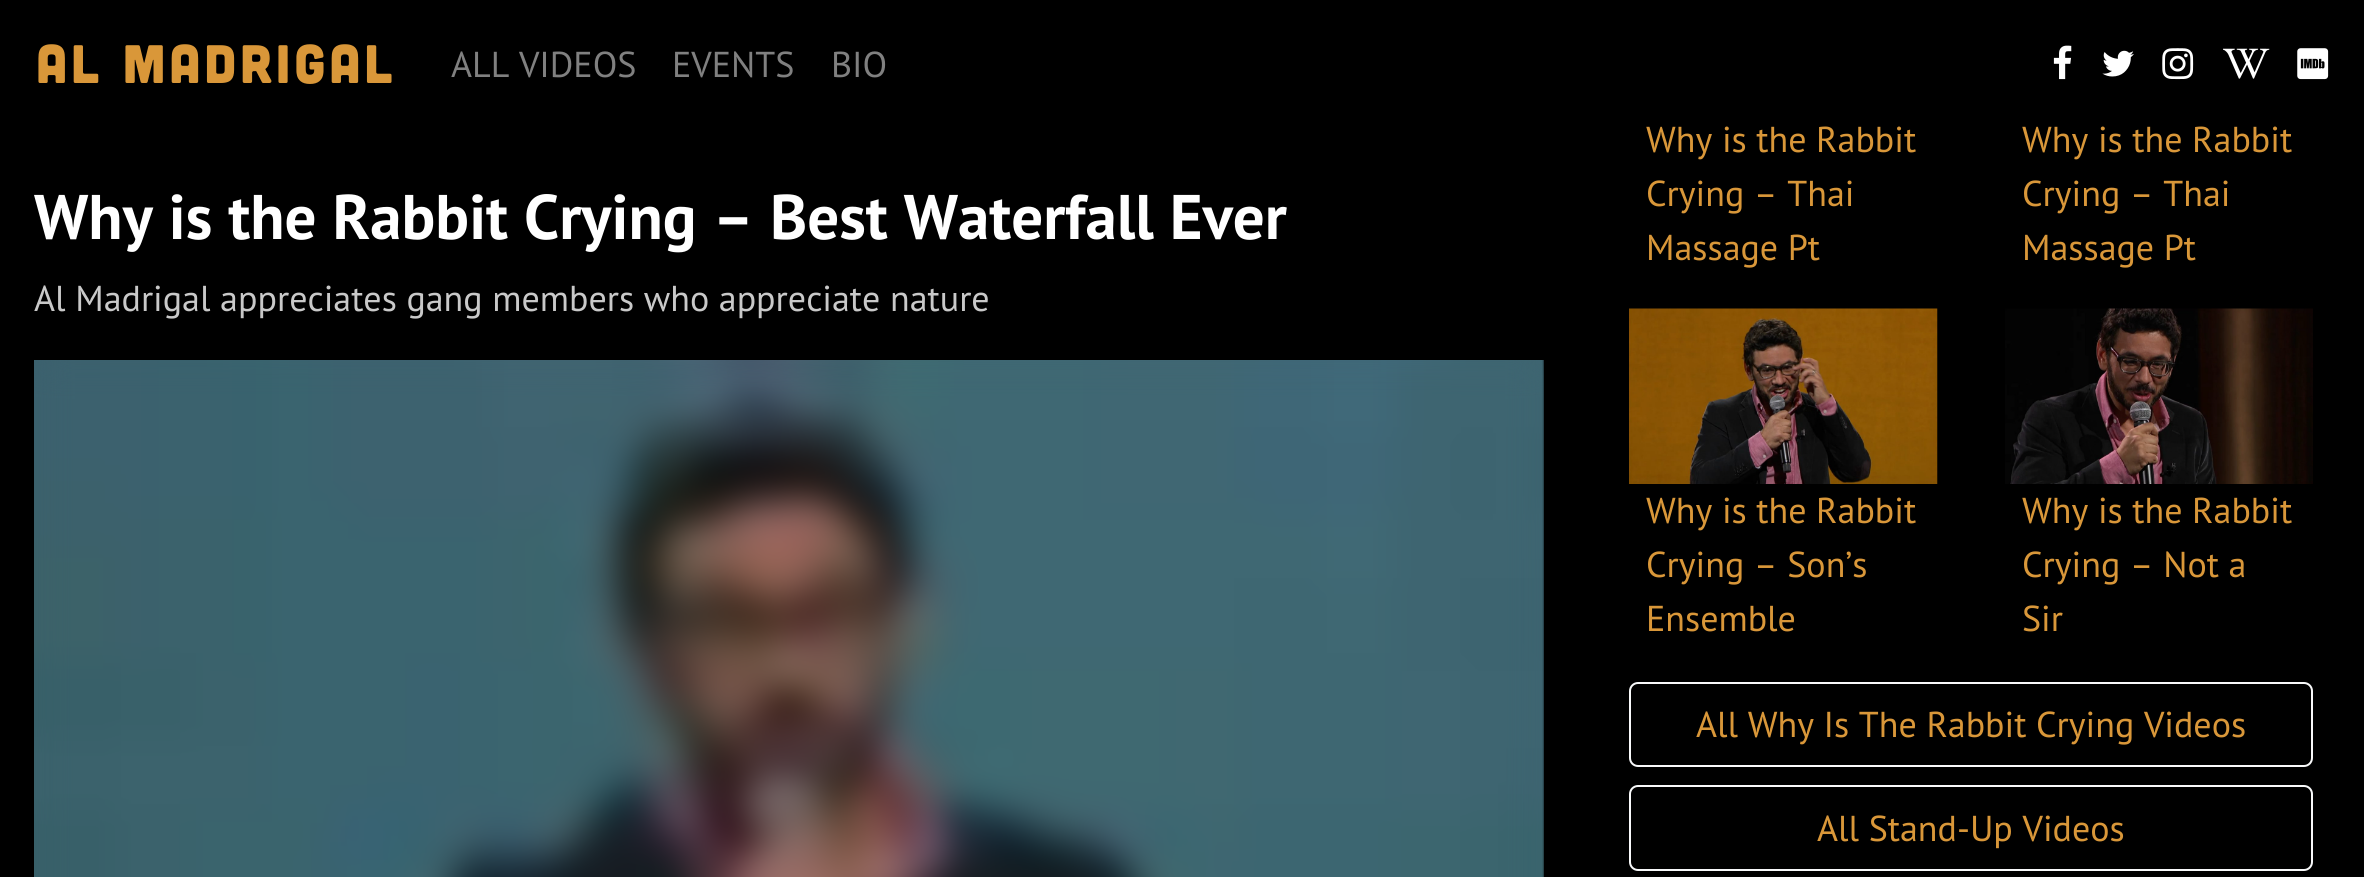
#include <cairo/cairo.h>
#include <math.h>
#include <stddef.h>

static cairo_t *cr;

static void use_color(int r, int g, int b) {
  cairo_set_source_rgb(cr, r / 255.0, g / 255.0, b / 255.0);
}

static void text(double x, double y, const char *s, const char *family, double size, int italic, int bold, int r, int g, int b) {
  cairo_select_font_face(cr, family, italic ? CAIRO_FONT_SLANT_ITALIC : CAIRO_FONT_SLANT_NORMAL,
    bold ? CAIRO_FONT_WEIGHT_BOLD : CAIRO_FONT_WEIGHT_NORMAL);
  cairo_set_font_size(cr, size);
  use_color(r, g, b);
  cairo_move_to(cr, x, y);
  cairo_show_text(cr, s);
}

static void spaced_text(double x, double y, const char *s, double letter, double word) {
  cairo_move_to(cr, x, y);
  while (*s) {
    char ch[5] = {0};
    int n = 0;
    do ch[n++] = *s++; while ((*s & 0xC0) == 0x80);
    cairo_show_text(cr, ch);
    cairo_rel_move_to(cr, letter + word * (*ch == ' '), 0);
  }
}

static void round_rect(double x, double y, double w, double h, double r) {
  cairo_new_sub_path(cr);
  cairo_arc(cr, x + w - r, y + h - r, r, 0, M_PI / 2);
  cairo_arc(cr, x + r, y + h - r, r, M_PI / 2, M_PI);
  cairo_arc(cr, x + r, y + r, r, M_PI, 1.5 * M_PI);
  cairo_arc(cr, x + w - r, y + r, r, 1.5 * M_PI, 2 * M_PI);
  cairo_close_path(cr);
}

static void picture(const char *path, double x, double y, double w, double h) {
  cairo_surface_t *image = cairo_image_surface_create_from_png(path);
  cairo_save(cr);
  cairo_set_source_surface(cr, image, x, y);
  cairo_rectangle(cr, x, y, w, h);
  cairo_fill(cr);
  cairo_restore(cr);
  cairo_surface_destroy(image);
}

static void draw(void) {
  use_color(0, 0, 0);
  cairo_paint(cr);
  picture("img_01.png", 2053, 45, 19, 35);
  picture("img_02.png", 2102, 50, 32, 27);
  picture("img_03.png", 2162, 48, 32, 32);
  picture("img_04.png", 2223, 48, 47, 31);
  picture("img_05.png", 2297, 48, 32, 32);
  picture("img_06.png", 34, 360, 1510, 517);
  picture("img_07.png", 1629, 308, 309, 176);
  picture("img_08.png", 2005, 308, 308, 176);
  round_rect(1630, 683, 682, 83, 8);
  use_color(248, 249, 250);
  cairo_stroke(cr);
  round_rect(1630, 786, 682, 84, 8);
  cairo_stroke(cr);
  cairo_select_font_face(cr, "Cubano", CAIRO_FONT_SLANT_NORMAL, CAIRO_FONT_WEIGHT_NORMAL);
  cairo_set_font_size(cr, 54);
  use_color(217, 151, 57);
  spaced_text(36, 83, "AL MADRIGAL", 3.75, 0);
  text(451, 77, "ALL VIDEOS", "PT Sans", 36, 0, 0, 128, 128, 128);
  text(672, 77, "EVENTS", "PT Sans", 36, 0, 0, 128, 128, 128);
  text(831, 77, "BIO", "PT Sans", 36, 0, 0, 128, 128, 128);
  text(34, 239, "Why is the Rabbit Crying – Best Waterfall Ever", "PT Sans", 63, 0, 1, 255, 255, 255);
  text(34, 311, "Al Madrigal appreciates gang members who appreciate nature", "PT Sans", 36, 0, 0, 201, 201, 201);
  text(1646, 152, "Why is the Rabbit", "PT Sans", 36, 0, 0, 217, 151, 57);
  text(1646, 206, "Crying – Thai", "PT Sans", 36, 0, 0, 217, 151, 57);
  text(1646, 260, "Massage Pt", "PT Sans", 36, 0, 0, 217, 151, 57);
  text(2022, 152, "Why is the Rabbit", "PT Sans", 36, 0, 0, 217, 151, 57);
  text(2022, 206, "Crying – Thai", "PT Sans", 36, 0, 0, 217, 151, 57);
  text(2022, 260, "Massage Pt", "PT Sans", 36, 0, 0, 217, 151, 57);
  text(1646, 523, "Why is the Rabbit", "PT Sans", 36, 0, 0, 217, 151, 57);
  text(1646, 577, "Crying – Son’s", "PT Sans", 36, 0, 0, 217, 151, 57);
  text(1646, 631, "Ensemble", "PT Sans", 36, 0, 0, 217, 151, 57);
  text(2022, 523, "Why is the Rabbit", "PT Sans", 36, 0, 0, 217, 151, 57);
  text(2022, 577, "Crying – Not a", "PT Sans", 36, 0, 0, 217, 151, 57);
  text(2022, 631, "Sir", "PT Sans", 36, 0, 0, 217, 151, 57);
  text(1696, 737, "All Why Is The Rabbit Crying Videos", "PT Sans", 36, 0, 0, 217, 151, 57);
  text(1817, 841, "All Stand-Up Videos", "PT Sans", 36, 0, 0, 217, 151, 57);
}

int main(void) {
  cairo_surface_t *surface = cairo_image_surface_create(CAIRO_FORMAT_RGB24, 2364, 877);
  cr = cairo_create(surface);
  cairo_font_options_t *options = cairo_font_options_create();
  cairo_font_options_set_hint_metrics(options, CAIRO_HINT_METRICS_OFF);
  cairo_font_options_set_hint_style(options, CAIRO_HINT_STYLE_NONE);
  cairo_set_font_options(cr, options);
  cairo_set_miter_limit(cr, 4);
  draw();
  cairo_surface_write_to_png(surface, "out.png");
  cairo_font_options_destroy(options);
  cairo_destroy(cr);
  cairo_surface_destroy(surface);
  return 0;
}
